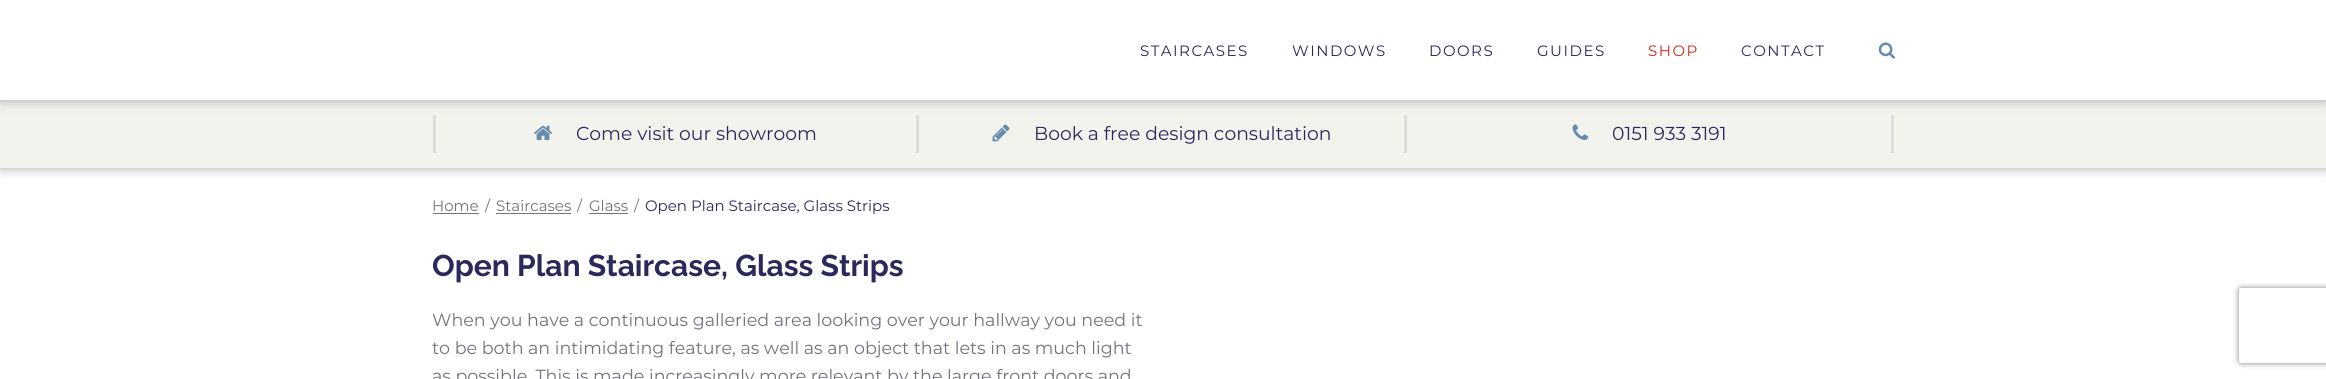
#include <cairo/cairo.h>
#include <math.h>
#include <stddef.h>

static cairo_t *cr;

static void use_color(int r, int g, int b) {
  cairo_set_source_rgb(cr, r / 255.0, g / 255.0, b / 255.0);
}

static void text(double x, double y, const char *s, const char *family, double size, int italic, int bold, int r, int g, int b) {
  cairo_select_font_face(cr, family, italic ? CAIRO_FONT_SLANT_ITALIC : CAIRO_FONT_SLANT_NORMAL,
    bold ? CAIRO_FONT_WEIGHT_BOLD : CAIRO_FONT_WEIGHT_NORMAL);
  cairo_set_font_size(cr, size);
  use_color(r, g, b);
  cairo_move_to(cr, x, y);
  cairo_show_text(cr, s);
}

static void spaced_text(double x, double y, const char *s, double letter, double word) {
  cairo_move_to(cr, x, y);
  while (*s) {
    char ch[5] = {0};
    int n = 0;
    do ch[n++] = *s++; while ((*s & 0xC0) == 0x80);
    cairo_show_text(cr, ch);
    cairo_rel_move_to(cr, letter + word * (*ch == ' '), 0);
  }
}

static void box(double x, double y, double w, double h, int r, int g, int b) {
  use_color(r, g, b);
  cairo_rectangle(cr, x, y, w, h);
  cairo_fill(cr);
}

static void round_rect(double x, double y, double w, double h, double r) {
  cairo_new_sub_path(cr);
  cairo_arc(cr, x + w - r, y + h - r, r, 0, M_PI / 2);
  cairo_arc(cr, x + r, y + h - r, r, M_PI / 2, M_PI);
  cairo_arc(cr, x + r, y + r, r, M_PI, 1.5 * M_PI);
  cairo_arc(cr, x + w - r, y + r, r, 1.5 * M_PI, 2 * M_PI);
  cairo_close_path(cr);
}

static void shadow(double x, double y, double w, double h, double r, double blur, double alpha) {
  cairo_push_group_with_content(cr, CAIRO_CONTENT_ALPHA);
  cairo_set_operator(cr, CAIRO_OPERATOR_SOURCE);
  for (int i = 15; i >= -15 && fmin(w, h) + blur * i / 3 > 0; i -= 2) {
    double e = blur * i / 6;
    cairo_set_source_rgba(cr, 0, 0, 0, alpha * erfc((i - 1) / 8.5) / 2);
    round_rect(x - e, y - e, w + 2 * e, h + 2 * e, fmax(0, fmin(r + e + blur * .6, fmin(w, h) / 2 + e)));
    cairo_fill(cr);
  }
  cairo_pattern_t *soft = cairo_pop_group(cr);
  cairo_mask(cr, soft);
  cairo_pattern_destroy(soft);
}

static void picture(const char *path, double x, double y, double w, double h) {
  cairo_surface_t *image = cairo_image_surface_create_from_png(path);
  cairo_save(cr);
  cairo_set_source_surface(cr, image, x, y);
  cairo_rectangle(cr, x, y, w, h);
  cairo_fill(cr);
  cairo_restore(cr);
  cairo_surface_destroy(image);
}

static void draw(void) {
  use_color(255, 255, 255);
  cairo_paint(cr);
  use_color(102, 102, 102);
  shadow(0, 96, 2326, 68, 0, 7.5, 1);
  box(0, 100, 2326, 68, 243, 243, 238);
  box(916, 115, 3, 38, 221, 221, 221);
  box(433, 115, 3, 38, 221, 221, 221);
  box(1404, 115, 3, 38, 221, 221, 221);
  box(1891, 115, 3, 38, 221, 221, 221);
  use_color(102, 102, 102);
  shadow(0, -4, 2326, 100, 0, 7.5, 1);
  box(0, 0, 2326, 100, 255, 255, 255);
  picture("img_01.png", 1878, 42, 17, 17);
  picture("img_02.png", 534, 125, 18, 15);
  picture("img_03.png", 992, 124, 18, 18);
  picture("img_04.png", 1572, 124, 17, 16);
  box(433, 213, 46, 1, 115, 114, 130);
  box(496, 213, 75, 1, 115, 114, 130);
  box(589, 213, 39, 1, 115, 114, 130);
  cairo_save(cr);
  cairo_set_fill_rule(cr, CAIRO_FILL_RULE_EVEN_ODD);
  cairo_new_path(cr);
  cairo_move_to(cr, 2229, 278);
  cairo_line_to(cr, 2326, 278);
  cairo_line_to(cr, 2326, 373);
  cairo_line_to(cr, 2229, 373);
  cairo_close_path(cr);
  cairo_move_to(cr, 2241.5, 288);
  cairo_line_to(cr, 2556.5, 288);
  cairo_curve_to(cr, 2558, 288, 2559, 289, 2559, 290.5);
  cairo_line_to(cr, 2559, 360.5);
  cairo_curve_to(cr, 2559, 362, 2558, 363, 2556.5, 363);
  cairo_line_to(cr, 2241.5, 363);
  cairo_curve_to(cr, 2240, 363, 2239, 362, 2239, 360.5);
  cairo_line_to(cr, 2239, 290.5);
  cairo_curve_to(cr, 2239, 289, 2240, 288, 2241.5, 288);
  cairo_close_path(cr);
  cairo_clip(cr);
  use_color(128, 128, 128);
  shadow(2239, 288, 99, 75, 2.5, 3, 1);
  cairo_restore(cr);
  cairo_select_font_face(cr, "Montserrat", CAIRO_FONT_SLANT_NORMAL, CAIRO_FONT_WEIGHT_NORMAL);
  cairo_set_font_size(cr, 15);
  use_color(43, 40, 92);
  spaced_text(1140, 56, "STAIRCASES", 1.5, 0);
  spaced_text(1292, 56, "WINDOWS", 1.5, 0);
  spaced_text(1429, 56, "DOORS", 1.5, 0);
  spaced_text(1537, 56, "GUIDES", 1.5, 0);
  use_color(207, 39, 22);
  spaced_text(1648, 56, "SHOP", 1.5, 0);
  use_color(43, 40, 92);
  spaced_text(1741, 56, "CONTACT", 1.5, 0);
  text(576, 140, "Come visit our showroom", "Montserrat", 18.75, 0, 0, 43, 40, 92);
  text(1034, 140, "Book a free design consultation", "Montserrat", 18.75, 0, 0, 43, 40, 92);
  text(1612, 140, "0151 933 3191", "Montserrat", 18.75, 0, 0, 43, 40, 92);
  text(432, 211, "Home", "Montserrat", 15, 0, 0, 115, 114, 130);
  text(485, 211, "/", "Montserrat", 15, 0, 0, 115, 114, 130);
  text(496, 211, "Staircases", "Montserrat", 15, 0, 0, 115, 114, 130);
  text(577, 211, "/", "Montserrat", 15, 0, 0, 115, 114, 130);
  text(589, 211, "Glass", "Montserrat", 15, 0, 0, 115, 114, 130);
  text(634, 211, "/", "Montserrat", 15, 0, 0, 115, 114, 130);
  text(645, 211, "Open Plan Staircase, Glass Strips", "Montserrat", 15, 0, 0, 43, 40, 92);
  text(432, 276, "Open Plan Staircase, Glass Strips", "Raleway", 30, 0, 1, 43, 40, 92);
  text(432, 326, "When you have a continuous galleried area looking over your hallway you need it", "Montserrat", 17.5, 0, 0, 115, 114, 130);
  text(432, 354, "to be both an intimidating feature, as well as an object that lets in as much light", "Montserrat", 17.5, 0, 0, 115, 114, 130);
  text(432, 382, "as possible. This is made increasingly more relevant by the large front doors and", "Montserrat", 17.5, 0, 0, 115, 114, 130);
}

int main(void) {
  cairo_surface_t *surface = cairo_image_surface_create(CAIRO_FORMAT_RGB24, 2326, 379);
  cr = cairo_create(surface);
  cairo_font_options_t *options = cairo_font_options_create();
  cairo_font_options_set_hint_metrics(options, CAIRO_HINT_METRICS_OFF);
  cairo_font_options_set_hint_style(options, CAIRO_HINT_STYLE_NONE);
  cairo_set_font_options(cr, options);
  cairo_set_miter_limit(cr, 4);
  draw();
  cairo_surface_write_to_png(surface, "out.png");
  cairo_font_options_destroy(options);
  cairo_destroy(cr);
  cairo_surface_destroy(surface);
  return 0;
}
